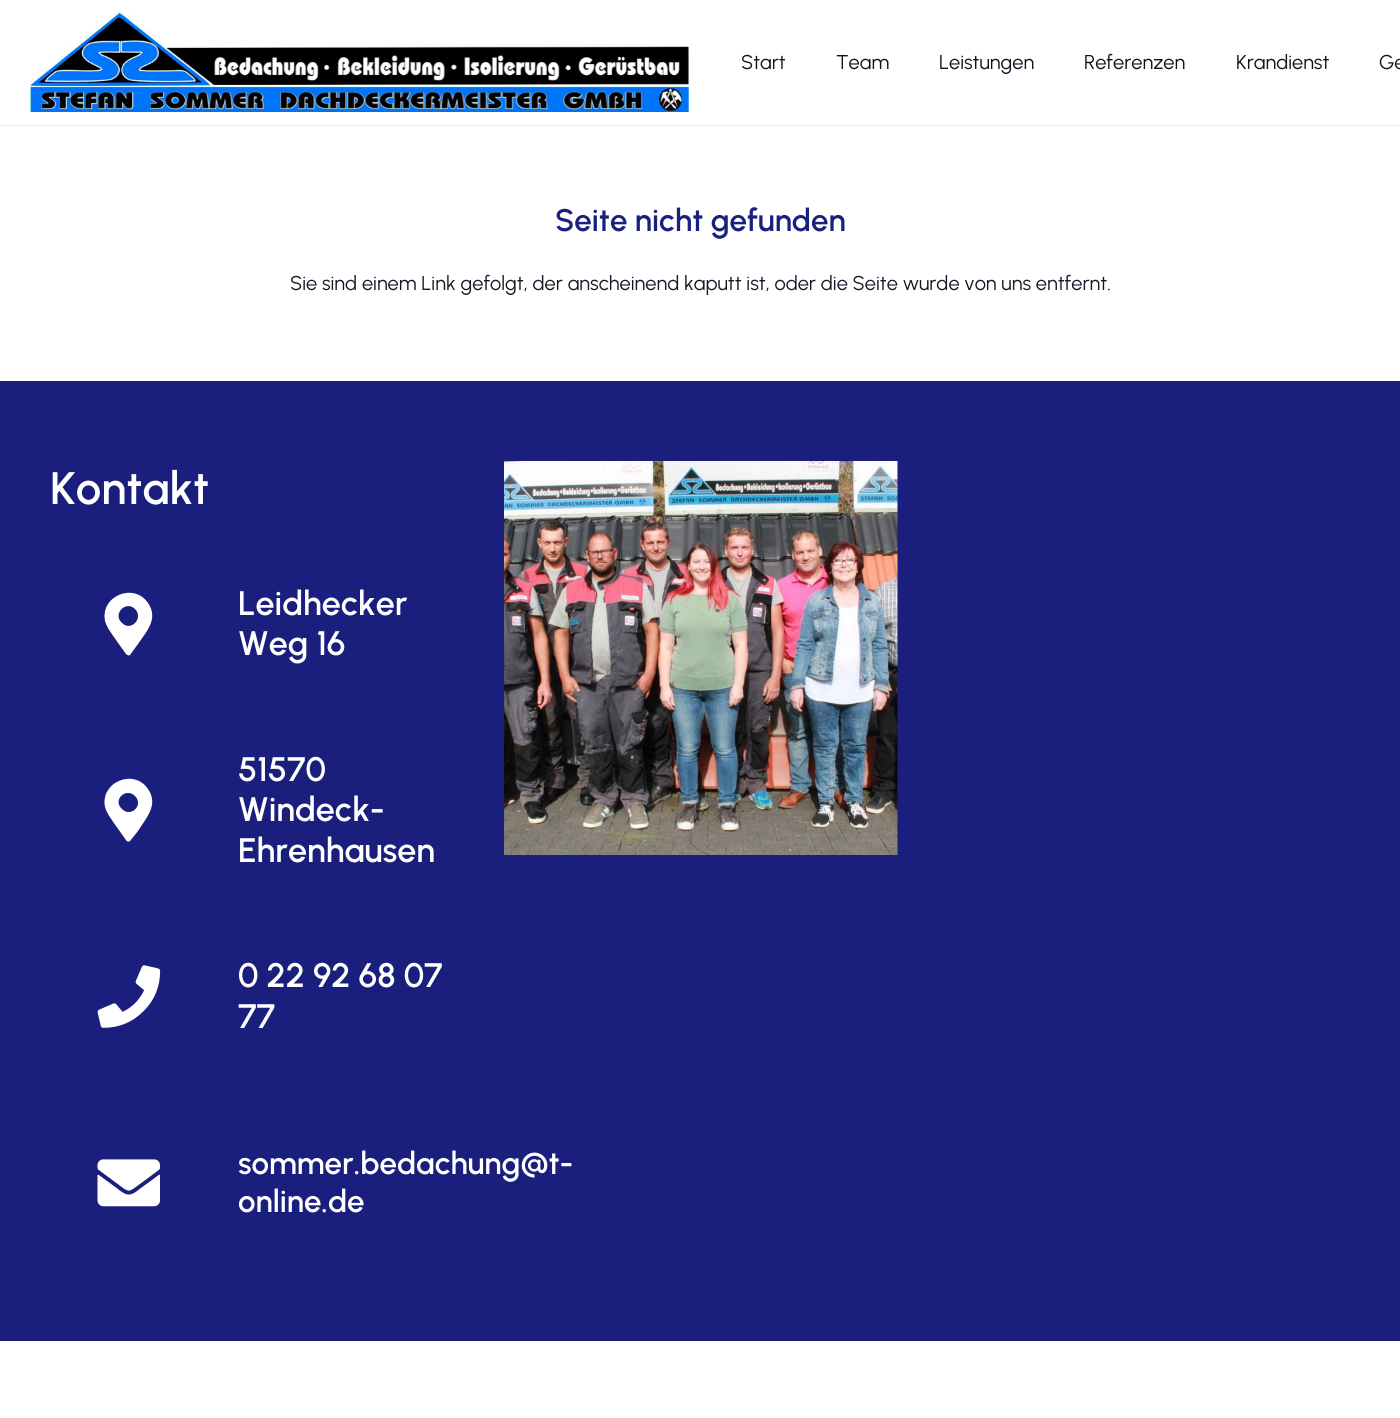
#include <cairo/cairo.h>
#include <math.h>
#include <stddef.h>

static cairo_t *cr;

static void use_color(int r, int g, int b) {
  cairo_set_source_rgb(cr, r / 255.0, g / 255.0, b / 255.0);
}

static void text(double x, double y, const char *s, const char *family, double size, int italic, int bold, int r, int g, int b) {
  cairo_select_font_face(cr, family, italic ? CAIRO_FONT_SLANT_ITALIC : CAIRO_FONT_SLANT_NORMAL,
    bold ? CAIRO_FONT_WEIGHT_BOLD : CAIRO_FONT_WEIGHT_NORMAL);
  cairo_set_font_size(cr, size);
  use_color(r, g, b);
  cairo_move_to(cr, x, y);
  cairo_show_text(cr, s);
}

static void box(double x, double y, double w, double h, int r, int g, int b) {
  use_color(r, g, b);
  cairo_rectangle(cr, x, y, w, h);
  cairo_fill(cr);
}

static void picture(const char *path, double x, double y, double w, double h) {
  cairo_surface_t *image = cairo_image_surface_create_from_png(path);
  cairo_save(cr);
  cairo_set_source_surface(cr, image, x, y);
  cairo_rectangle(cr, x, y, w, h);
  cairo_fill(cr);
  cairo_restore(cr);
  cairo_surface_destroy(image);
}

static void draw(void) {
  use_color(255, 255, 255);
  cairo_paint(cr);
  box(0, 125, 1400, 1, 235, 235, 235);
  picture("img_01.png", 30, 12, 659, 100);
  box(0, 381, 1400, 960, 26, 31, 125);
  use_color(255, 255, 255);
  cairo_new_path(cr);
  cairo_move_to(cr, 126, 654);
  cairo_line_to(cr, 116, 640);
  cairo_curve_to(cr, 112, 634, 107, 628, 105, 621);
  cairo_curve_to(cr, 100, 596, 134, 582, 148, 603);
  cairo_curve_to(cr, 159, 619, 146, 632, 138, 644);
  cairo_line_to(cr, 130, 655);
  cairo_curve_to(cr, 129, 656, 127, 655, 126, 654);
  cairo_close_path(cr);
  cairo_move_to(cr, 122, 623);
  cairo_curve_to(cr, 131, 632, 144, 618, 135, 609);
  cairo_curve_to(cr, 126, 600, 112, 614, 122, 623);
  cairo_close_path(cr);
  cairo_fill(cr);
  cairo_new_path(cr);
  cairo_move_to(cr, 126, 840);
  cairo_line_to(cr, 116, 826);
  cairo_curve_to(cr, 112, 820, 107, 814, 105, 807);
  cairo_curve_to(cr, 100, 782, 134, 768, 148, 789);
  cairo_curve_to(cr, 159, 805, 146, 818, 138, 831);
  cairo_line_to(cr, 130, 841);
  cairo_curve_to(cr, 129, 842, 127, 842, 126, 840);
  cairo_close_path(cr);
  cairo_move_to(cr, 122, 809);
  cairo_curve_to(cr, 131, 818, 144, 805, 135, 796);
  cairo_curve_to(cr, 126, 787, 112, 800, 122, 809);
  cairo_close_path(cr);
  cairo_fill(cr);
  picture("img_02.png", 97, 965, 64, 63);
  picture("img_03.png", 97, 1159, 63, 48);
  picture("img_04.png", 504, 461, 394, 394);
  text(741, 69, "Start", "Urbanist", 20, 0, 0, 15, 19, 31);
  text(836, 69, "Team", "Urbanist", 20, 0, 0, 15, 19, 31);
  text(939, 69, "Leistungen", "Urbanist", 20, 0, 0, 15, 19, 31);
  text(1084, 69, "Referenzen", "Urbanist", 20, 0, 0, 15, 19, 31);
  text(1236, 69, "Krandienst", "Urbanist", 20, 0, 0, 15, 19, 31);
  text(1379, 69, "Ge", "Urbanist", 20, 0, 0, 15, 19, 31);
  text(555, 231, "Seite nicht gefunden", "Urbanist SemiBold", 31.25, 0, 0, 24, 33, 128);
  text(290, 290, "Sie sind einem Link gefolgt, der anscheinend kaputt ist, oder die Seite wurde von uns entfernt.", "Urbanist", 20, 0, 0, 19, 25, 38);
  text(50, 504, "Kontakt", "Urbanist SemiBold", 45.5, 0, 0, 255, 255, 255);
  text(238, 615, "Leidhecker", "Urbanist SemiBold", 34, 0, 0, 255, 255, 255);
  text(238, 655, "Weg 16", "Urbanist SemiBold", 34, 0, 0, 255, 255, 255);
  text(238, 781, "51570", "Urbanist SemiBold", 34, 0, 0, 255, 255, 255);
  text(238, 821, "Windeck-", "Urbanist SemiBold", 34, 0, 0, 255, 255, 255);
  text(238, 862, "Ehrenhausen", "Urbanist SemiBold", 34, 0, 0, 255, 255, 255);
  text(238, 987, "0 22 92 68 07", "Urbanist SemiBold", 34, 0, 0, 255, 255, 255);
  text(238, 1028, "77", "Urbanist SemiBold", 34, 0, 0, 255, 255, 255);
  text(238, 1174, "sommer.bedachung@t-", "Urbanist SemiBold", 31.25, 0, 0, 255, 255, 255);
  text(238, 1212, "online.de", "Urbanist SemiBold", 31.25, 0, 0, 255, 255, 255);
}

int main(void) {
  cairo_surface_t *surface = cairo_image_surface_create(CAIRO_FORMAT_RGB24, 1400, 1418);
  cr = cairo_create(surface);
  cairo_font_options_t *options = cairo_font_options_create();
  cairo_font_options_set_hint_metrics(options, CAIRO_HINT_METRICS_OFF);
  cairo_font_options_set_hint_style(options, CAIRO_HINT_STYLE_NONE);
  cairo_set_font_options(cr, options);
  cairo_set_miter_limit(cr, 4);
  draw();
  cairo_surface_write_to_png(surface, "out.png");
  cairo_font_options_destroy(options);
  cairo_destroy(cr);
  cairo_surface_destroy(surface);
  return 0;
}
